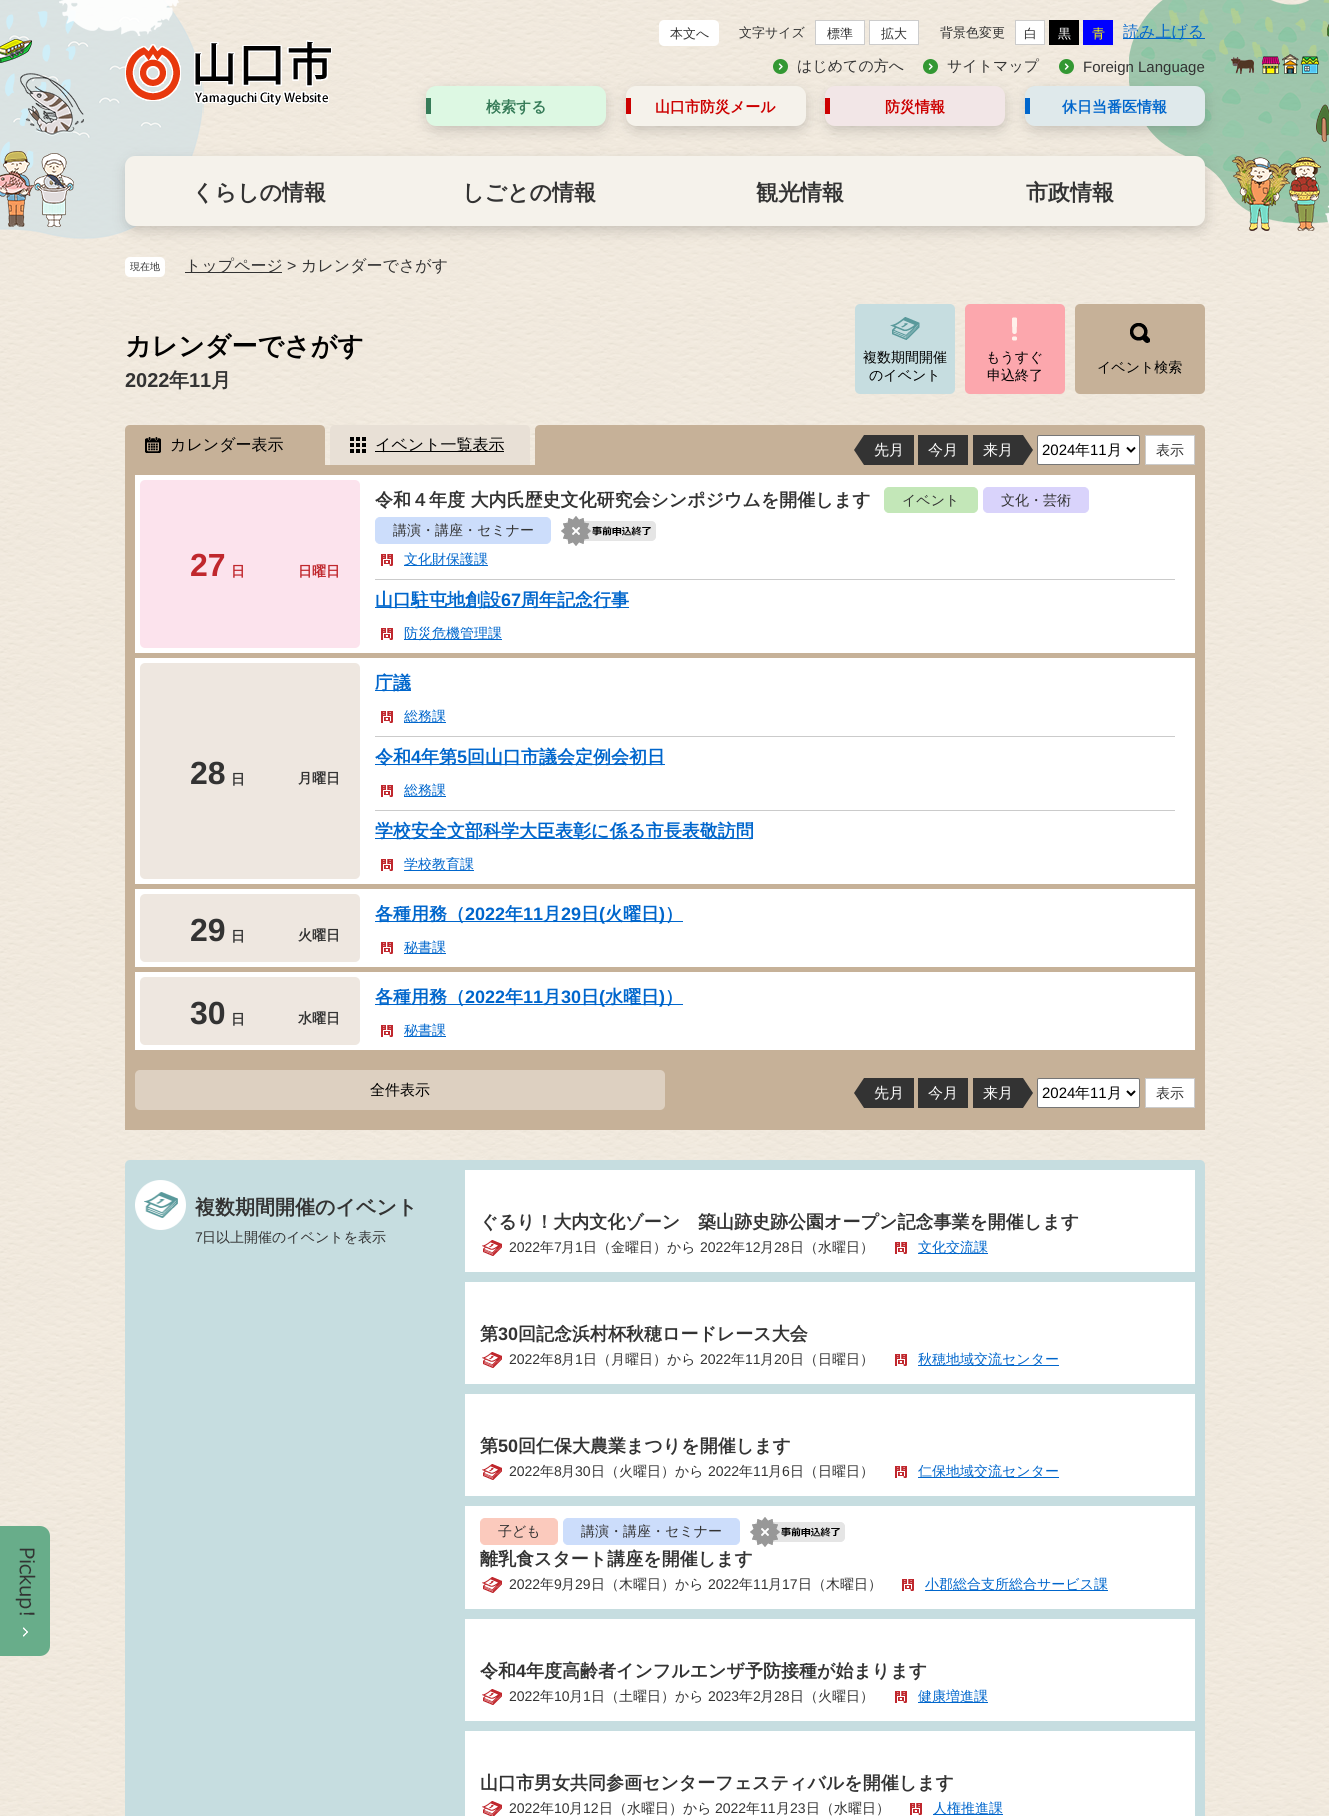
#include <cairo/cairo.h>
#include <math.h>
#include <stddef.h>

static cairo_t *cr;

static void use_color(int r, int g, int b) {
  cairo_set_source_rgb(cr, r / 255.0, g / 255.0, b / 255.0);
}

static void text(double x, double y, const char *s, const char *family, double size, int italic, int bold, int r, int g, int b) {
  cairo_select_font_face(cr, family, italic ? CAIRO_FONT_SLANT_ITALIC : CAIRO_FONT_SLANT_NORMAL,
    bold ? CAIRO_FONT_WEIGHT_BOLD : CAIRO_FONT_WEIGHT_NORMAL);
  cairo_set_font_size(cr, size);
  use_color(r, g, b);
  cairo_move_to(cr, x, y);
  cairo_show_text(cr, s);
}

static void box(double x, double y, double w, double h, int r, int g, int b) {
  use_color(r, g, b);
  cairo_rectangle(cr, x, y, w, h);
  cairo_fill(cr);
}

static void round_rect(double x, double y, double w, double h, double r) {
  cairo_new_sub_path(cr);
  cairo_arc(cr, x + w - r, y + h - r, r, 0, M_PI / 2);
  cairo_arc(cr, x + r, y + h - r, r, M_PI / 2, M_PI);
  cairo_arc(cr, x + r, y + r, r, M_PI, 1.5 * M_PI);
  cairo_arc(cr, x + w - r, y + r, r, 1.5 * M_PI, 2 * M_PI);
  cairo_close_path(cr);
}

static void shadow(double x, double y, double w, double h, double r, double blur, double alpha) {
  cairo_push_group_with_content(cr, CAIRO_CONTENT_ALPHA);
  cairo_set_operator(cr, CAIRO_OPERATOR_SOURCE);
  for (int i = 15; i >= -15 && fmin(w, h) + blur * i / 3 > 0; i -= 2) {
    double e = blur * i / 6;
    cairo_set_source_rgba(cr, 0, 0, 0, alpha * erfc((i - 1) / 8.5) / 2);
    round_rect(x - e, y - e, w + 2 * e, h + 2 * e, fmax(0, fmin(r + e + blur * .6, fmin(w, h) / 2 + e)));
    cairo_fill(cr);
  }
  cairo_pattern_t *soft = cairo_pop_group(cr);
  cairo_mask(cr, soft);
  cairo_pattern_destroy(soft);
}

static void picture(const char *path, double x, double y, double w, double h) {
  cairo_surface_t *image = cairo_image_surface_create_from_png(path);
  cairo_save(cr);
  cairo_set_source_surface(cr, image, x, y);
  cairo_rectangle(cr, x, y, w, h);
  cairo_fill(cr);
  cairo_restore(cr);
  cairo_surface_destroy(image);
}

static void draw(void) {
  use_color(255, 255, 255);
  cairo_paint(cr);
  picture("img_01.png", 0, 0, 1329, 1816);
  picture("img_02.png", 0, 0, 204, 239);
  picture("img_03.png", 125, 40, 207, 66);
  use_color(255, 255, 255);
  round_rect(659, 20, 60, 26, 5);
  cairo_fill(cr);
  cairo_rectangle(cr, 815.5, 20.5, 49, 24);
  cairo_fill_preserve(cr);
  use_color(204, 204, 204);
  cairo_set_line_width(cr, 1);
  cairo_stroke(cr);
  use_color(255, 255, 255);
  cairo_rectangle(cr, 869.5, 20.5, 49, 24);
  cairo_fill_preserve(cr);
  use_color(204, 204, 204);
  cairo_stroke(cr);
  use_color(255, 255, 255);
  cairo_rectangle(cr, 1015.5, 20.5, 29, 24);
  cairo_fill_preserve(cr);
  use_color(204, 204, 204);
  cairo_stroke(cr);
  box(1049, 20, 30, 25, 0, 0, 0);
  box(1083, 20, 30, 25, 0, 0, 255);
  picture("img_06.png", 1129, 0, 200, 231);
  box(1123, 38, 82, 1, 0, 102, 204);
  picture("img_04.png", 773, 59, 15, 15);
  picture("img_04.png", 923, 59, 15, 15);
  picture("img_05.png", 1059, 59, 15, 15);
  use_color(0, 0, 0);
  shadow(429, 93, 176, 36, 8, 7.5, 0.2);
  use_color(221, 248, 227);
  round_rect(426, 86, 180, 40, 10);
  cairo_fill(cr);
  box(426, 98, 5, 16, 54, 123, 88);
  use_color(0, 0, 0);
  shadow(629, 93, 176, 36, 8, 7.5, 0.2);
  use_color(245, 242, 235);
  round_rect(626, 86, 180, 40, 10);
  cairo_fill(cr);
  box(626, 98, 5, 16, 204, 0, 0);
  use_color(0, 0, 0);
  shadow(828, 93, 176, 36, 8, 7.5, 0.2);
  use_color(242, 230, 231);
  round_rect(825, 86, 180, 40, 10);
  cairo_fill(cr);
  box(825, 98, 5, 16, 204, 0, 0);
  use_color(0, 0, 0);
  shadow(1028, 93, 176, 36, 8, 7.5, 0.2);
  use_color(223, 233, 235);
  round_rect(1025, 86, 180, 40, 10);
  cairo_fill(cr);
  box(1025, 98, 5, 16, 0, 102, 204);
  use_color(0, 0, 0);
  shadow(128, 163, 1076, 66, 8, 7.5, 0.2);
  use_color(245, 242, 235);
  round_rect(125, 156, 1080, 70, 10);
  cairo_fill(cr);
  use_color(255, 255, 255);
  round_rect(125, 257, 40, 20, 5);
  cairo_fill(cr);
  box(185, 272, 97, 1, 51, 51, 51);
  use_color(104, 173, 138);
  cairo_new_path(cr);
  cairo_move_to(cr, 0, 1526);
  cairo_line_to(cr, 40, 1526);
  cairo_curve_to(cr, 45.5, 1526, 50, 1530.5, 50, 1536);
  cairo_line_to(cr, 50, 1646);
  cairo_curve_to(cr, 50, 1651.5, 45.5, 1656, 40, 1656);
  cairo_line_to(cr, 0, 1656);
  cairo_close_path(cr);
  cairo_fill(cr);
  picture("img_07.png", 15, 1548, 21, 89);
  use_color(198, 221, 224);
  round_rect(855, 304, 100, 90, 5);
  cairo_fill(cr);
  picture("img_08.png", 890, 317, 30, 23);
  use_color(252, 167, 173);
  round_rect(965, 304, 100, 90, 5);
  cairo_fill(cr);
  picture("img_09.png", 1012, 317, 5, 24);
  use_color(198, 177, 152);
  round_rect(1075, 304, 130, 90, 5);
  cairo_fill(cr);
  picture("img_10.png", 1130, 323, 20, 20);
  cairo_new_path(cr);
  cairo_move_to(cr, 130, 425);
  cairo_line_to(cr, 320, 425);
  cairo_curve_to(cr, 323, 425, 325, 427, 325, 430);
  cairo_line_to(cr, 325, 465);
  cairo_line_to(cr, 125, 465);
  cairo_line_to(cr, 125, 430);
  cairo_curve_to(cr, 125, 427, 127, 425, 130, 425);
  cairo_close_path(cr);
  cairo_fill(cr);
  picture("img_11.png", 145, 437, 16, 16);
  use_color(232, 224, 214);
  cairo_new_path(cr);
  cairo_move_to(cr, 335, 425);
  cairo_line_to(cr, 525, 425);
  cairo_curve_to(cr, 528, 425, 530, 427, 530, 430);
  cairo_line_to(cr, 530, 465);
  cairo_line_to(cr, 330, 465);
  cairo_line_to(cr, 330, 430);
  cairo_curve_to(cr, 330, 427, 332, 425, 335, 425);
  cairo_close_path(cr);
  cairo_fill(cr);
  picture("img_12.png", 350, 437, 16, 16);
  box(375, 451, 129, 1, 0, 0, 0);
  use_color(198, 177, 152);
  cairo_new_path(cr);
  cairo_move_to(cr, 540, 425);
  cairo_line_to(cr, 1200, 425);
  cairo_curve_to(cr, 1203, 425, 1205, 427, 1205, 430);
  cairo_line_to(cr, 1205, 465);
  cairo_line_to(cr, 535, 465);
  cairo_line_to(cr, 535, 430);
  cairo_curve_to(cr, 535, 427, 537, 425, 540, 425);
  cairo_close_path(cr);
  cairo_fill(cr);
  box(864, 435, 50, 30, 51, 51, 51);
  cairo_new_path(cr);
  cairo_move_to(cr, 864, 435);
  cairo_line_to(cr, 864, 465);
  cairo_line_to(cr, 854, 450);
  cairo_close_path(cr);
  cairo_fill(cr);
  box(918, 435, 50, 30, 51, 51, 51);
  box(973, 435, 50, 30, 51, 51, 51);
  cairo_new_path(cr);
  cairo_move_to(cr, 1023, 465);
  cairo_line_to(cr, 1023, 435);
  cairo_line_to(cr, 1033, 450);
  cairo_close_path(cr);
  cairo_fill(cr);
  use_color(255, 255, 255);
  round_rect(1037.5, 435.5, 102, 29, 1.5);
  cairo_fill_preserve(cr);
  use_color(118, 118, 118);
  cairo_stroke(cr);
  cairo_new_path(cr);
  cairo_move_to(cr, 1127, 447.5);
  cairo_line_to(cr, 1131, 451.5);
  cairo_line_to(cr, 1135, 447.5);
  use_color(0, 0, 0);
  cairo_set_line_width(cr, 2);
  cairo_stroke(cr);
  use_color(255, 255, 255);
  cairo_rectangle(cr, 1145.5, 435.5, 49, 29);
  cairo_fill_preserve(cr);
  use_color(203, 203, 203);
  cairo_set_line_width(cr, 1);
  cairo_stroke(cr);
  box(125, 465, 1080, 665, 198, 177, 152);
  box(135, 475, 1060, 178, 255, 255, 255);
  use_color(252, 227, 237);
  round_rect(140, 480, 220, 168, 5);
  cairo_fill(cr);
  box(375, 579, 800, 1, 203, 203, 203);
  use_color(195, 231, 184);
  round_rect(884.5, 487.5, 93, 25, 4.5);
  cairo_fill_preserve(cr);
  cairo_stroke(cr);
  use_color(217, 211, 251);
  round_rect(983.5, 487.5, 105, 25, 4.5);
  cairo_fill_preserve(cr);
  cairo_stroke(cr);
  use_color(204, 221, 251);
  round_rect(375.5, 517.5, 175, 26, 4.5);
  cairo_fill_preserve(cr);
  cairo_stroke(cr);
  picture("img_13.png", 561, 516, 95, 30);
  picture("img_14.png", 381, 554, 12, 12);
  box(404, 565, 84, 1, 0, 102, 204);
  box(375, 607, 254, 1, 0, 102, 204);
  picture("img_14.png", 381, 628, 12, 12);
  box(404, 639, 98, 1, 0, 102, 204);
  box(135, 658, 1060, 226, 255, 255, 255);
  use_color(238, 231, 224);
  round_rect(140, 663, 220, 216, 5);
  cairo_fill(cr);
  box(375, 736, 800, 1, 203, 203, 203);
  box(375, 690, 36, 1, 0, 102, 204);
  picture("img_14.png", 381, 711, 12, 12);
  box(404, 722, 42, 1, 0, 102, 204);
  box(375, 810, 800, 1, 203, 203, 203);
  box(375, 764, 290, 1, 0, 102, 204);
  picture("img_14.png", 381, 785, 12, 12);
  box(404, 796, 42, 1, 0, 102, 204);
  box(375, 838, 378, 1, 0, 102, 204);
  picture("img_14.png", 381, 859, 12, 12);
  box(404, 870, 70, 1, 0, 102, 204);
  box(135, 889, 1060, 78, 255, 255, 255);
  use_color(238, 231, 224);
  round_rect(140, 894, 220, 68, 5);
  cairo_fill(cr);
  box(375, 921, 308, 1, 0, 102, 204);
  picture("img_14.png", 381, 942, 12, 12);
  box(404, 953, 42, 1, 0, 102, 204);
  box(135, 972, 1060, 78, 255, 255, 255);
  use_color(238, 231, 224);
  round_rect(140, 977, 220, 68, 5);
  cairo_fill(cr);
  box(375, 1004, 308, 1, 0, 102, 204);
  picture("img_14.png", 381, 1025, 12, 12);
  box(404, 1036, 42, 1, 0, 102, 204);
  use_color(221, 208, 193);
  round_rect(135, 1070, 530, 40, 5);
  cairo_fill(cr);
  box(864, 1078, 50, 30, 51, 51, 51);
  cairo_new_path(cr);
  cairo_move_to(cr, 864, 1078);
  cairo_line_to(cr, 864, 1108);
  cairo_line_to(cr, 854, 1093);
  cairo_close_path(cr);
  cairo_fill(cr);
  box(918, 1078, 50, 30, 51, 51, 51);
  box(973, 1078, 50, 30, 51, 51, 51);
  cairo_new_path(cr);
  cairo_move_to(cr, 1023, 1108);
  cairo_line_to(cr, 1023, 1078);
  cairo_line_to(cr, 1033, 1093);
  cairo_close_path(cr);
  cairo_fill(cr);
  use_color(255, 255, 255);
  round_rect(1037.5, 1078.5, 102, 29, 1.5);
  cairo_fill_preserve(cr);
  use_color(118, 118, 118);
  cairo_stroke(cr);
  cairo_new_path(cr);
  cairo_move_to(cr, 1127, 1091);
  cairo_line_to(cr, 1131, 1095);
  cairo_line_to(cr, 1135, 1091);
  use_color(0, 0, 0);
  cairo_set_line_width(cr, 2);
  cairo_stroke(cr);
  use_color(255, 255, 255);
  cairo_rectangle(cr, 1145.5, 1078.5, 49, 29);
  cairo_fill_preserve(cr);
  use_color(203, 203, 203);
  cairo_set_line_width(cr, 1);
  cairo_stroke(cr);
  use_color(198, 221, 224);
  round_rect(125, 1160, 1080, 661, 5);
  cairo_fill(cr);
  picture("img_15.png", 135, 1180, 51, 50);
  box(465, 1170, 730, 102, 255, 255, 255);
  picture("img_16.png", 482, 1240, 20, 16);
  picture("img_14.png", 895, 1242, 12, 12);
  box(918, 1253, 70, 1, 0, 102, 204);
  box(465, 1282, 730, 102, 255, 255, 255);
  picture("img_16.png", 482, 1352, 20, 16);
  picture("img_14.png", 895, 1354, 12, 12);
  box(918, 1365, 141, 1, 0, 102, 204);
  box(465, 1394, 730, 102, 255, 255, 255);
  picture("img_16.png", 482, 1464, 20, 16);
  picture("img_14.png", 895, 1466, 12, 12);
  box(918, 1477, 141, 1, 0, 102, 204);
  box(465, 1506, 730, 103, 255, 255, 255);
  use_color(251, 202, 189);
  round_rect(480.5, 1518.5, 77, 26, 4.5);
  cairo_fill_preserve(cr);
  cairo_stroke(cr);
  use_color(204, 221, 251);
  round_rect(563.5, 1518.5, 176, 26, 4.5);
  cairo_fill_preserve(cr);
  cairo_stroke(cr);
  picture("img_13.png", 750, 1517, 95, 30);
  picture("img_16.png", 482, 1577, 20, 16);
  picture("img_14.png", 902, 1579, 12, 12);
  box(925, 1590, 183, 1, 0, 102, 204);
  box(465, 1619, 730, 102, 255, 255, 255);
  picture("img_16.png", 482, 1689, 20, 16);
  picture("img_14.png", 895, 1691, 12, 12);
  box(918, 1702, 70, 1, 0, 102, 204);
  box(465, 1731, 730, 85, 255, 255, 255);
  picture("img_17.png", 482, 1801, 20, 15);
  picture("img_14.png", 910, 1803, 12, 12);
  box(933, 1814, 70, 1, 0, 102, 204);
  text(670, 38, "本文へ", "WenQuanYi Zen Hei Medium", 13, 0, 0, 51, 51, 51);
  text(739, 37, "文字サイズ", "WenQuanYi Zen Hei Medium", 13, 0, 0, 51, 51, 51);
  text(827, 38, "標準", "WenQuanYi Zen Hei Medium", 13, 0, 0, 51, 51, 51);
  text(881, 38, "拡大", "WenQuanYi Zen Hei Medium", 13, 0, 0, 51, 51, 51);
  text(940, 37, "背景色変更", "WenQuanYi Zen Hei Medium", 13, 0, 0, 51, 51, 51);
  text(1024, 38, "白", "WenQuanYi Zen Hei Medium", 13, 0, 0, 51, 51, 51);
  text(1058, 38, "黒", "WenQuanYi Zen Hei Medium", 13, 0, 0, 255, 255, 255);
  text(1092, 38, "青", "WenQuanYi Zen Hei Medium", 13, 0, 0, 255, 255, 0);
  text(1123, 37, "読み上げる", "WenQuanYi Zen Hei Medium", 16, 0, 0, 0, 102, 204);
  text(797, 71, "はじめての方へ", "WenQuanYi Zen Hei Medium", 15, 0, 0, 51, 51, 51);
  text(947, 71, "サイトマップ", "WenQuanYi Zen Hei Medium", 15, 0, 0, 51, 51, 51);
  text(1083, 72, "Foreign Language", "Liberation Sans", 15, 0, 0, 51, 51, 51);
  text(486, 112, "検索する", "WenQuanYi Zen Hei", 15, 0, 1, 54, 123, 88);
  text(655, 112, "山口市防災メール", "WenQuanYi Zen Hei", 15, 0, 1, 204, 0, 0);
  text(885, 112, "防災情報", "WenQuanYi Zen Hei", 15, 0, 1, 204, 0, 0);
  text(1062, 112, "休日当番医情報", "WenQuanYi Zen Hei", 15, 0, 1, 0, 102, 204);
  text(192, 200, "くらしの情報", "WenQuanYi Zen Hei", 22, 0, 1, 51, 51, 51);
  text(462, 200, "しごとの情報", "WenQuanYi Zen Hei", 22, 0, 1, 51, 51, 51);
  text(756, 200, "観光情報", "WenQuanYi Zen Hei", 22, 0, 1, 51, 51, 51);
  text(1026, 200, "市政情報", "WenQuanYi Zen Hei", 22, 0, 1, 51, 51, 51);
  text(130, 270, "現在地", "WenQuanYi Zen Hei Medium", 10, 0, 0, 51, 51, 51);
  text(185, 271, "トップページ", "WenQuanYi Zen Hei Medium", 16, 0, 0, 51, 51, 51);
  text(287, 271, ">", "Liberation Sans", 16, 0, 0, 51, 51, 51);
  text(301, 271, "カレンダーでさがす", "WenQuanYi Zen Hei Medium", 16, 0, 0, 51, 51, 51);
  text(125, 355, "カレンダーでさがす", "WenQuanYi Zen Hei", 26, 0, 1, 0, 0, 0);
  text(863, 362, "複数期間開催", "WenQuanYi Zen Hei Medium", 14, 0, 0, 0, 0, 0);
  text(869, 380, "のイベント", "WenQuanYi Zen Hei Medium", 14, 0, 0, 0, 0, 0);
  text(986, 362, "もうすぐ", "WenQuanYi Zen Hei Medium", 14, 0, 0, 0, 0, 0);
  text(987, 380, "申込終了", "WenQuanYi Zen Hei Medium", 14, 0, 0, 0, 0, 0);
  text(1097, 372, "イベント検索", "WenQuanYi Zen Hei Medium", 14, 0, 0, 0, 0, 0);
  text(125, 387, "2022", "Liberation Sans", 20, 0, 1, 51, 51, 51);
  text(169, 387, "年", "WenQuanYi Zen Hei", 20, 0, 1, 51, 51, 51);
  text(189, 387, "11", "Liberation Sans", 20, 0, 1, 51, 51, 51);
  text(211, 387, "月", "WenQuanYi Zen Hei", 20, 0, 1, 51, 51, 51);
  text(170, 450, "カレンダー表示", "WenQuanYi Zen Hei Medium", 16, 0, 0, 0, 0, 0);
  text(375, 450, "イベント一覧表示", "WenQuanYi Zen Hei Medium", 16, 0, 0, 0, 0, 0);
  text(874, 455, "先月", "WenQuanYi Zen Hei Medium", 15, 0, 0, 255, 255, 255);
  text(928, 455, "今月", "WenQuanYi Zen Hei Medium", 15, 0, 0, 255, 255, 255);
  text(983, 455, "来月", "WenQuanYi Zen Hei Medium", 15, 0, 0, 255, 255, 255);
  text(1042, 455, "2024", "Liberation Sans", 15, 0, 0, 0, 0, 0);
  text(1075, 455, "年", "WenQuanYi Zen Hei Medium", 15, 0, 0, 0, 0, 0);
  text(1090, 455, "11", "Liberation Sans", 15, 0, 0, 0, 0, 0);
  text(1107, 455, "月", "WenQuanYi Zen Hei Medium", 15, 0, 0, 0, 0, 0);
  text(1156, 455, "表示", "WenQuanYi Zen Hei Medium", 14, 0, 0, 51, 51, 51);
  text(190, 576, "27", "Liberation Sans", 32, 0, 1, 192, 39, 45);
  text(231, 576, "日", "WenQuanYi Zen Hei", 14, 0, 1, 192, 39, 45);
  text(298, 576, "日曜日", "WenQuanYi Zen Hei", 14, 0, 1, 192, 39, 45);
  text(375, 506, "令和４年度 大内氏歴史文化研究会シンポジウムを開催します", "WenQuanYi Zen Hei", 18, 0, 1, 51, 51, 51);
  text(902, 505, "イベント", "WenQuanYi Zen Hei Medium", 14, 0, 0, 51, 51, 51);
  text(1001, 505, "文化・芸術", "WenQuanYi Zen Hei Medium", 14, 0, 0, 51, 51, 51);
  text(393, 535, "講演・講座・セミナー", "WenQuanYi Zen Hei Medium", 14, 0, 0, 51, 51, 51);
  text(404, 564, "文化財保護課", "WenQuanYi Zen Hei Medium", 14, 0, 0, 0, 102, 204);
  text(375, 606, "山口駐屯地創設", "WenQuanYi Zen Hei", 18, 0, 1, 0, 102, 204);
  text(501, 606, "67", "Liberation Sans", 18, 0, 1, 0, 102, 204);
  text(521, 606, "周年記念行事", "WenQuanYi Zen Hei", 18, 0, 1, 0, 102, 204);
  text(404, 638, "防災危機管理課", "WenQuanYi Zen Hei Medium", 14, 0, 0, 0, 102, 204);
  text(190, 784, "28", "Liberation Sans", 32, 0, 1, 51, 51, 51);
  text(231, 784, "日", "WenQuanYi Zen Hei", 14, 0, 1, 51, 51, 51);
  text(298, 783, "月曜日", "WenQuanYi Zen Hei", 14, 0, 1, 51, 51, 51);
  text(375, 689, "庁議", "WenQuanYi Zen Hei", 18, 0, 1, 0, 102, 204);
  text(404, 721, "総務課", "WenQuanYi Zen Hei Medium", 14, 0, 0, 0, 102, 204);
  text(375, 763, "令和", "WenQuanYi Zen Hei", 18, 0, 1, 0, 102, 204);
  text(411, 763, "4", "Liberation Sans", 18, 0, 1, 0, 102, 204);
  text(421, 763, "年第", "WenQuanYi Zen Hei", 18, 0, 1, 0, 102, 204);
  text(457, 763, "5", "Liberation Sans", 18, 0, 1, 0, 102, 204);
  text(467, 763, "回山口市議会定例会初日", "WenQuanYi Zen Hei", 18, 0, 1, 0, 102, 204);
  text(404, 795, "総務課", "WenQuanYi Zen Hei Medium", 14, 0, 0, 0, 102, 204);
  text(375, 837, "学校安全文部科学大臣表彰に係る市長表敬訪問", "WenQuanYi Zen Hei", 18, 0, 1, 0, 102, 204);
  text(404, 869, "学校教育課", "WenQuanYi Zen Hei Medium", 14, 0, 0, 0, 102, 204);
  text(190, 941, "29", "Liberation Sans", 32, 0, 1, 51, 51, 51);
  text(231, 941, "日", "WenQuanYi Zen Hei", 14, 0, 1, 51, 51, 51);
  text(298, 940, "火曜日", "WenQuanYi Zen Hei", 14, 0, 1, 51, 51, 51);
  text(375, 920, "各種用務（", "WenQuanYi Zen Hei", 18, 0, 1, 0, 102, 204);
  text(465, 920, "2022", "Liberation Sans", 18, 0, 1, 0, 102, 204);
  text(505, 920, "年", "WenQuanYi Zen Hei", 18, 0, 1, 0, 102, 204);
  text(523, 920, "11", "Liberation Sans", 18, 0, 1, 0, 102, 204);
  text(543, 920, "月", "WenQuanYi Zen Hei", 18, 0, 1, 0, 102, 204);
  text(561, 920, "29", "Liberation Sans", 18, 0, 1, 0, 102, 204);
  text(581, 920, "日", "WenQuanYi Zen Hei", 18, 0, 1, 0, 102, 204);
  text(599, 920, "(", "Liberation Sans", 18, 0, 1, 0, 102, 204);
  text(605, 920, "火曜日", "WenQuanYi Zen Hei", 18, 0, 1, 0, 102, 204);
  text(659, 920, ")", "Liberation Sans", 18, 0, 1, 0, 102, 204);
  text(665, 920, "）", "WenQuanYi Zen Hei", 18, 0, 1, 0, 102, 204);
  text(404, 952, "秘書課", "WenQuanYi Zen Hei Medium", 14, 0, 0, 0, 102, 204);
  text(190, 1024, "30", "Liberation Sans", 32, 0, 1, 51, 51, 51);
  text(231, 1024, "日", "WenQuanYi Zen Hei", 14, 0, 1, 51, 51, 51);
  text(298, 1023, "水曜日", "WenQuanYi Zen Hei", 14, 0, 1, 51, 51, 51);
  text(375, 1003, "各種用務（", "WenQuanYi Zen Hei", 18, 0, 1, 0, 102, 204);
  text(465, 1003, "2022", "Liberation Sans", 18, 0, 1, 0, 102, 204);
  text(505, 1003, "年", "WenQuanYi Zen Hei", 18, 0, 1, 0, 102, 204);
  text(523, 1003, "11", "Liberation Sans", 18, 0, 1, 0, 102, 204);
  text(543, 1003, "月", "WenQuanYi Zen Hei", 18, 0, 1, 0, 102, 204);
  text(561, 1003, "30", "Liberation Sans", 18, 0, 1, 0, 102, 204);
  text(581, 1003, "日", "WenQuanYi Zen Hei", 18, 0, 1, 0, 102, 204);
  text(599, 1003, "(", "Liberation Sans", 18, 0, 1, 0, 102, 204);
  text(605, 1003, "水曜日", "WenQuanYi Zen Hei", 18, 0, 1, 0, 102, 204);
  text(659, 1003, ")", "Liberation Sans", 18, 0, 1, 0, 102, 204);
  text(665, 1003, "）", "WenQuanYi Zen Hei", 18, 0, 1, 0, 102, 204);
  text(404, 1035, "秘書課", "WenQuanYi Zen Hei Medium", 14, 0, 0, 0, 102, 204);
  text(370, 1095, "全件表示", "WenQuanYi Zen Hei Medium", 15, 0, 0, 0, 0, 0);
  text(874, 1098, "先月", "WenQuanYi Zen Hei Medium", 15, 0, 0, 255, 255, 255);
  text(928, 1098, "今月", "WenQuanYi Zen Hei Medium", 15, 0, 0, 255, 255, 255);
  text(983, 1098, "来月", "WenQuanYi Zen Hei Medium", 15, 0, 0, 255, 255, 255);
  text(1042, 1098, "2024", "Liberation Sans", 15, 0, 0, 0, 0, 0);
  text(1075, 1098, "年", "WenQuanYi Zen Hei Medium", 15, 0, 0, 0, 0, 0);
  text(1090, 1098, "11", "Liberation Sans", 15, 0, 0, 0, 0, 0);
  text(1107, 1098, "月", "WenQuanYi Zen Hei Medium", 15, 0, 0, 0, 0, 0);
  text(1156, 1098, "表示", "WenQuanYi Zen Hei Medium", 14, 0, 0, 51, 51, 51);
  text(195, 1214, "複数期間開催のイベント", "WenQuanYi Zen Hei", 20, 0, 1, 51, 51, 51);
  text(195, 1242, "7", "Liberation Sans", 14, 0, 0, 51, 51, 51);
  text(202, 1242, "日以上開催のイベントを表示", "WenQuanYi Zen Hei Medium", 14, 0, 0, 51, 51, 51);
  text(480, 1228, "ぐるり！大内文化ゾーン　築山跡史跡公園オープン記念事業を開催します", "WenQuanYi Zen Hei", 18, 0, 1, 51, 51, 51);
  text(509, 1252, "2022", "Liberation Sans", 14, 0, 0, 51, 51, 51);
  text(540, 1252, "年", "WenQuanYi Zen Hei Medium", 14, 0, 0, 51, 51, 51);
  text(554, 1252, "7", "Liberation Sans", 14, 0, 0, 51, 51, 51);
  text(561, 1252, "月", "WenQuanYi Zen Hei Medium", 14, 0, 0, 51, 51, 51);
  text(575, 1252, "1", "Liberation Sans", 14, 0, 0, 51, 51, 51);
  text(583, 1252, "日（金曜日）から", "WenQuanYi Zen Hei Medium", 14, 0, 0, 51, 51, 51);
  text(700, 1252, "2022", "Liberation Sans", 14, 0, 0, 51, 51, 51);
  text(731, 1252, "年", "WenQuanYi Zen Hei Medium", 14, 0, 0, 51, 51, 51);
  text(745, 1252, "12", "Liberation Sans", 14, 0, 0, 51, 51, 51);
  text(760, 1252, "月", "WenQuanYi Zen Hei Medium", 14, 0, 0, 51, 51, 51);
  text(774, 1252, "28", "Liberation Sans", 14, 0, 0, 51, 51, 51);
  text(790, 1252, "日（水曜日）", "WenQuanYi Zen Hei Medium", 14, 0, 0, 51, 51, 51);
  text(918, 1252, "文化交流課", "WenQuanYi Zen Hei Medium", 14, 0, 0, 0, 102, 204);
  text(480, 1340, "第", "WenQuanYi Zen Hei", 18, 0, 1, 51, 51, 51);
  text(498, 1340, "30", "Liberation Sans", 18, 0, 1, 51, 51, 51);
  text(518, 1340, "回記念浜村杯秋穂ロードレース大会", "WenQuanYi Zen Hei", 18, 0, 1, 51, 51, 51);
  text(509, 1364, "2022", "Liberation Sans", 14, 0, 0, 51, 51, 51);
  text(540, 1364, "年", "WenQuanYi Zen Hei Medium", 14, 0, 0, 51, 51, 51);
  text(554, 1364, "8", "Liberation Sans", 14, 0, 0, 51, 51, 51);
  text(561, 1364, "月", "WenQuanYi Zen Hei Medium", 14, 0, 0, 51, 51, 51);
  text(575, 1364, "1", "Liberation Sans", 14, 0, 0, 51, 51, 51);
  text(583, 1364, "日（月曜日）から", "WenQuanYi Zen Hei Medium", 14, 0, 0, 51, 51, 51);
  text(700, 1364, "2022", "Liberation Sans", 14, 0, 0, 51, 51, 51);
  text(731, 1364, "年", "WenQuanYi Zen Hei Medium", 14, 0, 0, 51, 51, 51);
  text(745, 1364, "11", "Liberation Sans", 14, 0, 0, 51, 51, 51);
  text(760, 1364, "月", "WenQuanYi Zen Hei Medium", 14, 0, 0, 51, 51, 51);
  text(774, 1364, "20", "Liberation Sans", 14, 0, 0, 51, 51, 51);
  text(790, 1364, "日（日曜日）", "WenQuanYi Zen Hei Medium", 14, 0, 0, 51, 51, 51);
  text(918, 1364, "秋穂地域交流センター", "WenQuanYi Zen Hei Medium", 14, 0, 0, 0, 102, 204);
  text(480, 1452, "第", "WenQuanYi Zen Hei", 18, 0, 1, 51, 51, 51);
  text(498, 1452, "50", "Liberation Sans", 18, 0, 1, 51, 51, 51);
  text(518, 1452, "回仁保大農業まつりを開催します", "WenQuanYi Zen Hei", 18, 0, 1, 51, 51, 51);
  text(509, 1476, "2022", "Liberation Sans", 14, 0, 0, 51, 51, 51);
  text(540, 1476, "年", "WenQuanYi Zen Hei Medium", 14, 0, 0, 51, 51, 51);
  text(554, 1476, "8", "Liberation Sans", 14, 0, 0, 51, 51, 51);
  text(561, 1476, "月", "WenQuanYi Zen Hei Medium", 14, 0, 0, 51, 51, 51);
  text(575, 1476, "30", "Liberation Sans", 14, 0, 0, 51, 51, 51);
  text(591, 1476, "日（火曜日）から", "WenQuanYi Zen Hei Medium", 14, 0, 0, 51, 51, 51);
  text(708, 1476, "2022", "Liberation Sans", 14, 0, 0, 51, 51, 51);
  text(739, 1476, "年", "WenQuanYi Zen Hei Medium", 14, 0, 0, 51, 51, 51);
  text(753, 1476, "11", "Liberation Sans", 14, 0, 0, 51, 51, 51);
  text(768, 1476, "月", "WenQuanYi Zen Hei Medium", 14, 0, 0, 51, 51, 51);
  text(782, 1476, "6", "Liberation Sans", 14, 0, 0, 51, 51, 51);
  text(790, 1476, "日（日曜日）", "WenQuanYi Zen Hei Medium", 14, 0, 0, 51, 51, 51);
  text(918, 1476, "仁保地域交流センター", "WenQuanYi Zen Hei Medium", 14, 0, 0, 0, 102, 204);
  text(498, 1536, "子ども", "WenQuanYi Zen Hei Medium", 14, 0, 0, 51, 51, 51);
  text(581, 1536, "講演・講座・セミナー", "WenQuanYi Zen Hei Medium", 14, 0, 0, 51, 51, 51);
  text(480, 1565, "離乳食スタート講座を開催します", "WenQuanYi Zen Hei", 18, 0, 1, 51, 51, 51);
  text(509, 1589, "2022", "Liberation Sans", 14, 0, 0, 51, 51, 51);
  text(540, 1589, "年", "WenQuanYi Zen Hei Medium", 14, 0, 0, 51, 51, 51);
  text(554, 1589, "9", "Liberation Sans", 14, 0, 0, 51, 51, 51);
  text(561, 1589, "月", "WenQuanYi Zen Hei Medium", 14, 0, 0, 51, 51, 51);
  text(575, 1589, "29", "Liberation Sans", 14, 0, 0, 51, 51, 51);
  text(591, 1589, "日（木曜日）から", "WenQuanYi Zen Hei Medium", 14, 0, 0, 51, 51, 51);
  text(708, 1589, "2022", "Liberation Sans", 14, 0, 0, 51, 51, 51);
  text(739, 1589, "年", "WenQuanYi Zen Hei Medium", 14, 0, 0, 51, 51, 51);
  text(753, 1589, "11", "Liberation Sans", 14, 0, 0, 51, 51, 51);
  text(768, 1589, "月", "WenQuanYi Zen Hei Medium", 14, 0, 0, 51, 51, 51);
  text(782, 1589, "17", "Liberation Sans", 14, 0, 0, 51, 51, 51);
  text(798, 1589, "日（木曜日）", "WenQuanYi Zen Hei Medium", 14, 0, 0, 51, 51, 51);
  text(925, 1589, "小郡総合支所総合サービス課", "WenQuanYi Zen Hei Medium", 14, 0, 0, 0, 102, 204);
  text(480, 1677, "令和", "WenQuanYi Zen Hei", 18, 0, 1, 51, 51, 51);
  text(516, 1677, "4", "Liberation Sans", 18, 0, 1, 51, 51, 51);
  text(526, 1677, "年度高齢者インフルエンザ予防接種が始まります", "WenQuanYi Zen Hei", 18, 0, 1, 51, 51, 51);
  text(509, 1701, "2022", "Liberation Sans", 14, 0, 0, 51, 51, 51);
  text(540, 1701, "年", "WenQuanYi Zen Hei Medium", 14, 0, 0, 51, 51, 51);
  text(554, 1701, "10", "Liberation Sans", 14, 0, 0, 51, 51, 51);
  text(569, 1701, "月", "WenQuanYi Zen Hei Medium", 14, 0, 0, 51, 51, 51);
  text(583, 1701, "1", "Liberation Sans", 14, 0, 0, 51, 51, 51);
  text(591, 1701, "日（土曜日）から", "WenQuanYi Zen Hei Medium", 14, 0, 0, 51, 51, 51);
  text(708, 1701, "2023", "Liberation Sans", 14, 0, 0, 51, 51, 51);
  text(739, 1701, "年", "WenQuanYi Zen Hei Medium", 14, 0, 0, 51, 51, 51);
  text(753, 1701, "2", "Liberation Sans", 14, 0, 0, 51, 51, 51);
  text(760, 1701, "月", "WenQuanYi Zen Hei Medium", 14, 0, 0, 51, 51, 51);
  text(774, 1701, "28", "Liberation Sans", 14, 0, 0, 51, 51, 51);
  text(790, 1701, "日（火曜日）", "WenQuanYi Zen Hei Medium", 14, 0, 0, 51, 51, 51);
  text(918, 1701, "健康増進課", "WenQuanYi Zen Hei Medium", 14, 0, 0, 0, 102, 204);
  text(480, 1789, "山口市男女共同参画センターフェスティバルを開催します", "WenQuanYi Zen Hei", 18, 0, 1, 51, 51, 51);
  text(509, 1813, "2022", "Liberation Sans", 14, 0, 0, 51, 51, 51);
  text(540, 1813, "年", "WenQuanYi Zen Hei Medium", 14, 0, 0, 51, 51, 51);
  text(554, 1813, "10", "Liberation Sans", 14, 0, 0, 51, 51, 51);
  text(569, 1813, "月", "WenQuanYi Zen Hei Medium", 14, 0, 0, 51, 51, 51);
  text(583, 1813, "12", "Liberation Sans", 14, 0, 0, 51, 51, 51);
  text(599, 1813, "日（水曜日）から", "WenQuanYi Zen Hei Medium", 14, 0, 0, 51, 51, 51);
  text(715, 1813, "2022", "Liberation Sans", 14, 0, 0, 51, 51, 51);
  text(746, 1813, "年", "WenQuanYi Zen Hei Medium", 14, 0, 0, 51, 51, 51);
  text(760, 1813, "11", "Liberation Sans", 14, 0, 0, 51, 51, 51);
  text(776, 1813, "月", "WenQuanYi Zen Hei Medium", 14, 0, 0, 51, 51, 51);
  text(790, 1813, "23", "Liberation Sans", 14, 0, 0, 51, 51, 51);
  text(806, 1813, "日（水曜日）", "WenQuanYi Zen Hei Medium", 14, 0, 0, 51, 51, 51);
  text(933, 1813, "人権推進課", "WenQuanYi Zen Hei Medium", 14, 0, 0, 0, 102, 204);
}

int main(void) {
  cairo_surface_t *surface = cairo_image_surface_create(CAIRO_FORMAT_RGB24, 1329, 1816);
  cr = cairo_create(surface);
  cairo_font_options_t *options = cairo_font_options_create();
  cairo_font_options_set_hint_metrics(options, CAIRO_HINT_METRICS_OFF);
  cairo_font_options_set_hint_style(options, CAIRO_HINT_STYLE_NONE);
  cairo_set_font_options(cr, options);
  cairo_set_miter_limit(cr, 4);
  draw();
  cairo_surface_write_to_png(surface, "out.png");
  cairo_font_options_destroy(options);
  cairo_destroy(cr);
  cairo_surface_destroy(surface);
  return 0;
}
